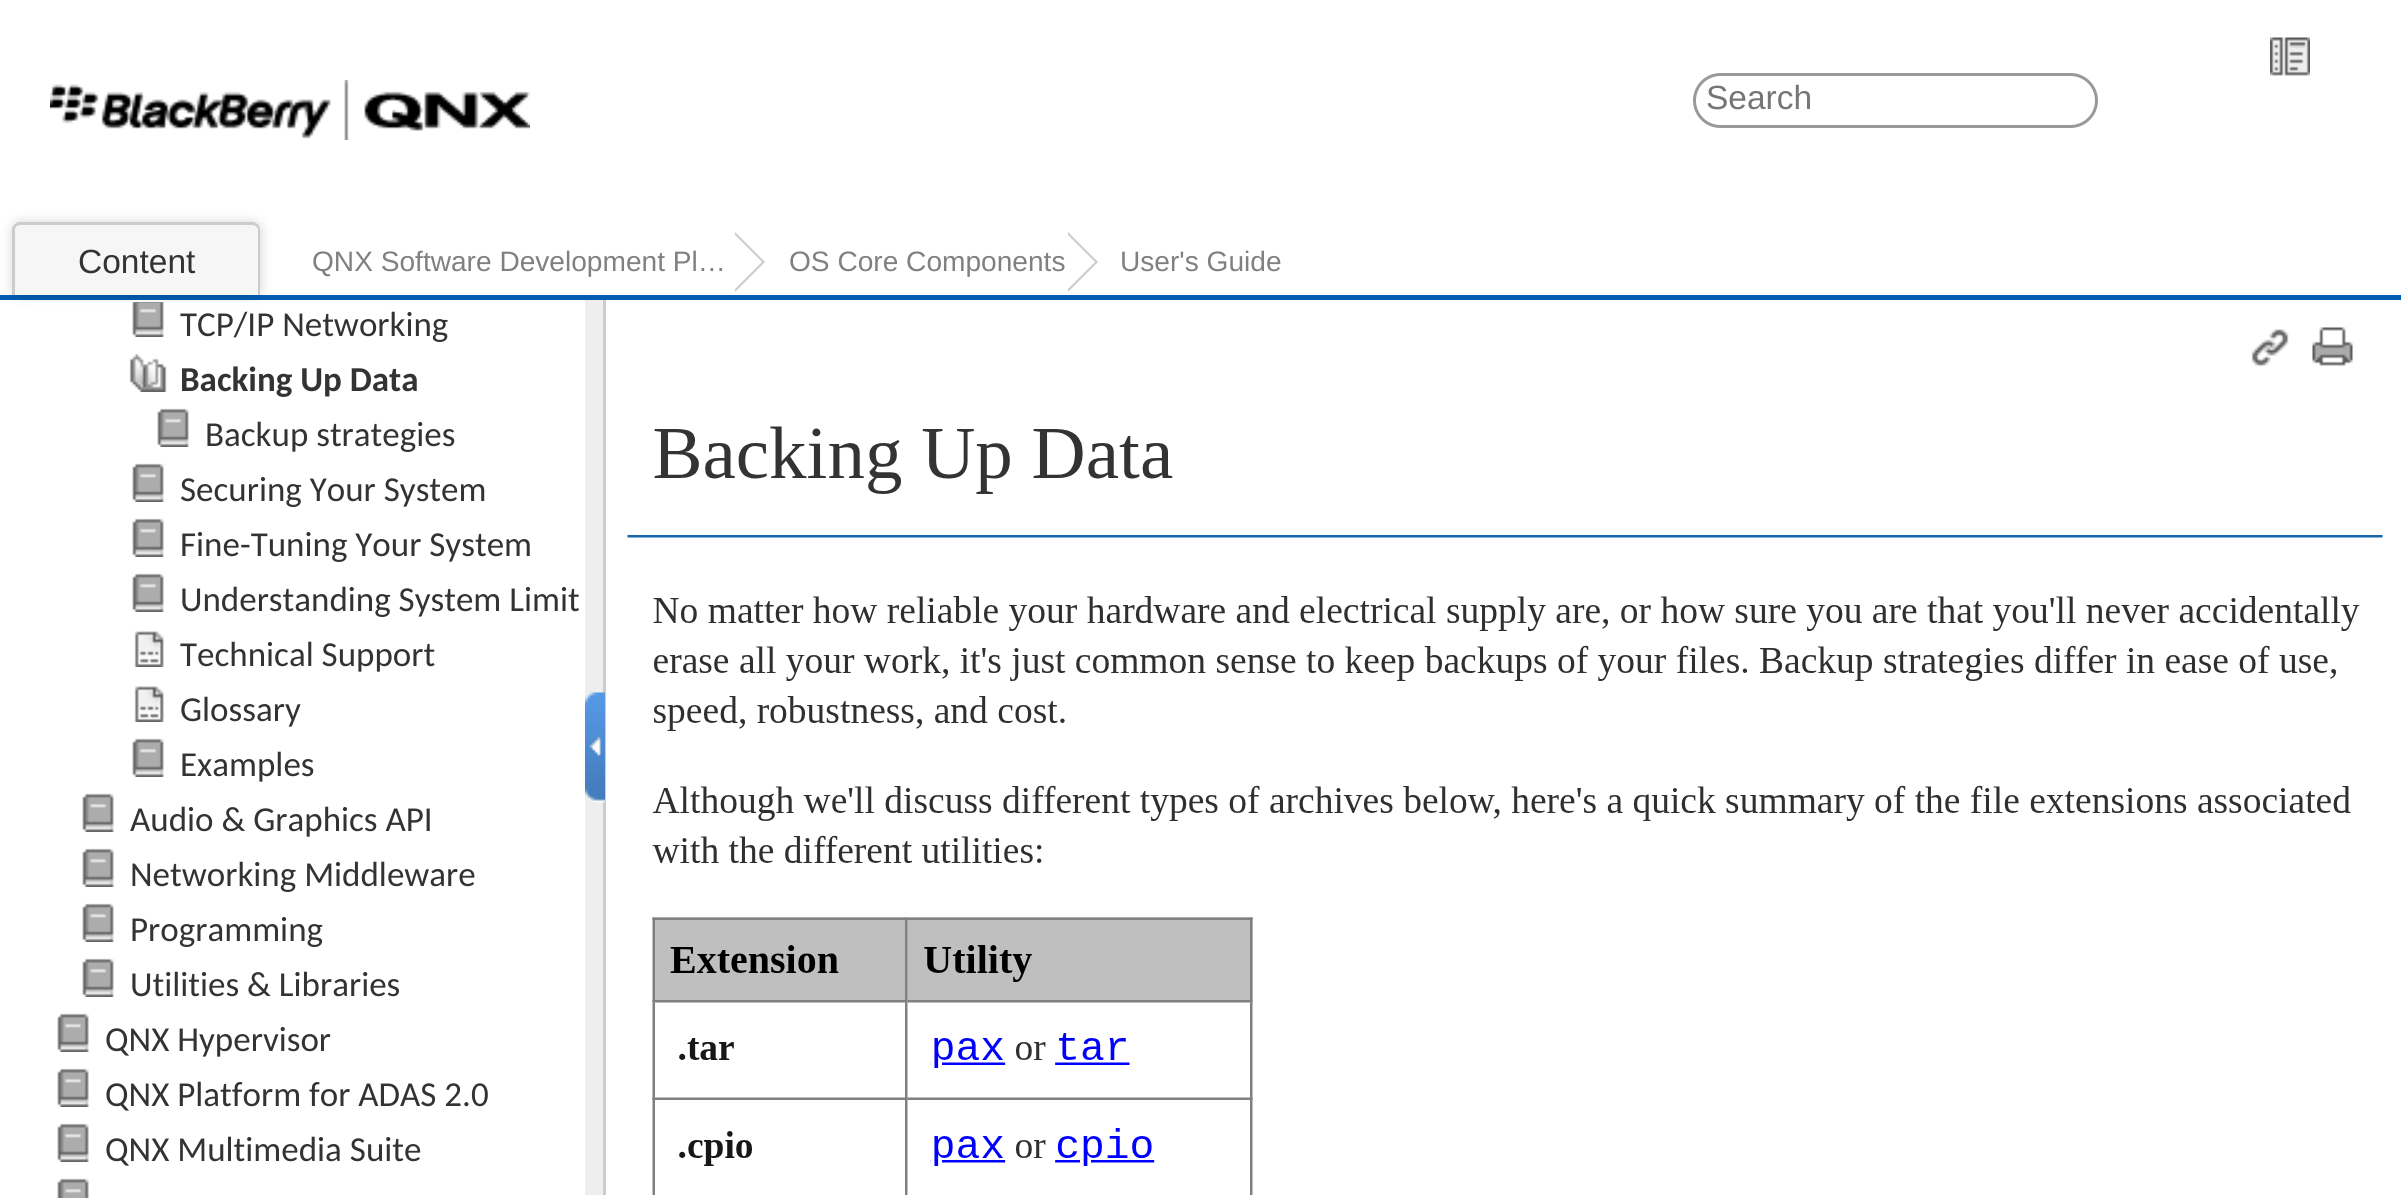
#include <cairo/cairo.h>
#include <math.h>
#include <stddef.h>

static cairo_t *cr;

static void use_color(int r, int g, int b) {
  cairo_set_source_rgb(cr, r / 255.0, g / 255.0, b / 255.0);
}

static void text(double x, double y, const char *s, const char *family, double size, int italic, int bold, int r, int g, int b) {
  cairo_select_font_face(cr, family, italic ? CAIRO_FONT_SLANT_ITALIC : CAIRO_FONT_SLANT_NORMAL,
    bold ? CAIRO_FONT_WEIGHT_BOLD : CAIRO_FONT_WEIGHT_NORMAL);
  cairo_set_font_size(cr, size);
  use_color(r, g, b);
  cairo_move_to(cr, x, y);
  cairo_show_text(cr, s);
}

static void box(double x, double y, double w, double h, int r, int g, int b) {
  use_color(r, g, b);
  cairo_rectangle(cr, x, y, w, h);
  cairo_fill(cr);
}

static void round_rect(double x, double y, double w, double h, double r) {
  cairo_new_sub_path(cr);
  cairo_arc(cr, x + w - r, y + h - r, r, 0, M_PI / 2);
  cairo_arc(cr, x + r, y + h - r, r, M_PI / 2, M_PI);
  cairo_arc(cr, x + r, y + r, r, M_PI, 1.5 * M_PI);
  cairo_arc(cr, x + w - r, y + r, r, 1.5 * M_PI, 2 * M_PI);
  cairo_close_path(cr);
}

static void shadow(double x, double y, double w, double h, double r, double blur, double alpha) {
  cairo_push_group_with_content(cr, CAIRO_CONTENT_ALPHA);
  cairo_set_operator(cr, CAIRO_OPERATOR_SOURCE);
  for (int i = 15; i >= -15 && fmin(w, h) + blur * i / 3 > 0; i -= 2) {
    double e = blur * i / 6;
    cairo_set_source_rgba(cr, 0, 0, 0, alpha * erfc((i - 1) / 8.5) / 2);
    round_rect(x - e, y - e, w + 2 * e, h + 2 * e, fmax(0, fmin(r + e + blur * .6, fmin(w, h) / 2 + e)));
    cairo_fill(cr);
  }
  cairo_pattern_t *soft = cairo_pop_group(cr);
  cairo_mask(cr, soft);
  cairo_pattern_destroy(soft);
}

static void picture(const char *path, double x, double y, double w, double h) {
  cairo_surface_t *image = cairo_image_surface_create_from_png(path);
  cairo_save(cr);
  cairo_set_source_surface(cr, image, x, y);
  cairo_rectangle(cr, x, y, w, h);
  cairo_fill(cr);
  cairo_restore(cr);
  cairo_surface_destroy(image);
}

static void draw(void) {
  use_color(255, 255, 255);
  cairo_paint(cr);
  picture("img_01.png", 2270, 37, 40, 39);
  picture("img_02.png", 50, 80, 480, 60);
  round_rect(1694.5, 74.5, 402, 52, 26);
  use_color(153, 153, 153);
  cairo_set_line_width(cr, 3);
  cairo_stroke(cr);
  box(0, 295, 2401, 5, 0, 92, 179);
  use_color(0, 0, 0);
  shadow(13, 223, 247, 72, 8, 6, 0.2);
  use_color(246, 246, 246);
  cairo_new_path(cr);
  cairo_move_to(cr, 21, 223);
  cairo_line_to(cr, 252, 223);
  cairo_curve_to(cr, 256.5, 223, 260, 226.5, 260, 231);
  cairo_line_to(cr, 260, 295);
  cairo_line_to(cr, 13, 295);
  cairo_line_to(cr, 13, 231);
  cairo_curve_to(cr, 13, 226.5, 16.5, 223, 21, 223);
  cairo_close_path(cr);
  cairo_fill(cr);
  use_color(204, 204, 204);
  cairo_set_fill_rule(cr, CAIRO_FILL_RULE_EVEN_ODD);
  cairo_new_path(cr);
  cairo_move_to(cr, 20, 222);
  cairo_line_to(cr, 252, 222);
  cairo_curve_to(cr, 257, 222, 260, 226, 260, 230);
  cairo_line_to(cr, 260, 295);
  cairo_line_to(cr, 12, 295);
  cairo_line_to(cr, 12, 230);
  cairo_curve_to(cr, 12, 226, 16, 222, 20, 222);
  cairo_close_path(cr);
  cairo_move_to(cr, 20, 225);
  cairo_line_to(cr, 252, 225);
  cairo_curve_to(cr, 255, 225, 258, 227, 258, 230);
  cairo_line_to(cr, 258, 295);
  cairo_line_to(cr, 15, 295);
  cairo_line_to(cr, 15, 230);
  cairo_curve_to(cr, 15, 227, 17, 225, 20, 225);
  cairo_close_path(cr);
  cairo_fill(cr);
  cairo_set_fill_rule(cr, CAIRO_FILL_RULE_WINDING);
  cairo_new_path(cr);
  cairo_move_to(cr, 735, 292);
  cairo_line_to(cr, 735, 232);
  cairo_line_to(cr, 765, 262);
  cairo_close_path(cr);
  cairo_fill(cr);
  use_color(255, 255, 255);
  cairo_new_path(cr);
  cairo_move_to(cr, 732, 292);
  cairo_line_to(cr, 732, 232);
  cairo_line_to(cr, 762, 262);
  cairo_close_path(cr);
  cairo_fill(cr);
  use_color(204, 204, 204);
  cairo_new_path(cr);
  cairo_move_to(cr, 1068, 292);
  cairo_line_to(cr, 1068, 232);
  cairo_line_to(cr, 1098, 262);
  cairo_close_path(cr);
  cairo_fill(cr);
  use_color(255, 255, 255);
  cairo_new_path(cr);
  cairo_move_to(cr, 1065, 292);
  cairo_line_to(cr, 1065, 232);
  cairo_line_to(cr, 1095, 262);
  cairo_close_path(cr);
  cairo_fill(cr);
  box(28, 303, 227, 2, 255, 255, 255);
  picture("img_03.png", 132, 302, 32, 35);
  picture("img_04.png", 129, 353, 38, 39);
  picture("img_05.png", 157, 408, 32, 39);
  picture("img_05.png", 132, 463, 32, 39);
  picture("img_05.png", 132, 518, 32, 39);
  picture("img_05.png", 132, 573, 32, 39);
  picture("img_06.png", 134, 631, 30, 36);
  picture("img_06.png", 134, 686, 30, 36);
  picture("img_05.png", 132, 738, 32, 39);
  picture("img_07.png", 82, 793, 32, 39);
  picture("img_07.png", 82, 848, 32, 39);
  picture("img_07.png", 82, 903, 32, 39);
  picture("img_07.png", 82, 958, 32, 39);
  picture("img_05.png", 57, 1013, 32, 39);
  picture("img_05.png", 57, 1068, 32, 39);
  picture("img_05.png", 57, 1123, 32, 39);
  picture("img_08.png", 57, 1178, 32, 20);
  box(585, 300, 18, 895, 238, 238, 238);
  box(603, 300, 3, 895, 204, 204, 204);
  picture("img_09.png", 585, 692, 20, 111);
  picture("img_10.png", 627, 327, 1756, 868);
  text(1706, 109, "Search", "Liberation Sans", 33.5, 0, 0, 117, 117, 117);
  text(78, 273, "Content", "Liberation Sans", 33.5, 0, 0, 51, 51, 51);
  text(312, 271, "QNX Software Development Pl…", "Liberation Sans", 28.1, 0, 0, 128, 128, 128);
  text(789, 271, "OS Core Components", "Liberation Sans", 28.1, 0, 0, 128, 128, 128);
  text(1120, 271, "User's Guide", "Liberation Sans", 28.1, 0, 0, 128, 128, 128);
  text(180, 336, "TCP/IP Networking", "Carlito", 35, 0, 0, 51, 51, 51);
  text(180, 391, "Backing Up Data", "Carlito", 35, 0, 1, 51, 51, 51);
  text(205, 446, "Backup strategies", "Carlito", 35, 0, 0, 51, 51, 51);
  text(180, 501, "Securing Your System", "Carlito", 35, 0, 0, 51, 51, 51);
  text(180, 556, "Fine-Tuning Your System", "Carlito", 35, 0, 0, 51, 51, 51);
  text(180, 611, "Understanding System Limit", "Carlito", 35, 0, 0, 51, 51, 51);
  text(180, 666, "Technical Support", "Carlito", 35, 0, 0, 51, 51, 51);
  text(180, 721, "Glossary", "Carlito", 35, 0, 0, 51, 51, 51);
  text(180, 776, "Examples", "Carlito", 35, 0, 0, 51, 51, 51);
  text(130, 831, "Audio & Graphics API", "Carlito", 35, 0, 0, 51, 51, 51);
  text(130, 886, "Networking Middleware", "Carlito", 35, 0, 0, 51, 51, 51);
  text(130, 941, "Programming", "Carlito", 35, 0, 0, 51, 51, 51);
  text(130, 996, "Utilities & Libraries", "Carlito", 35, 0, 0, 51, 51, 51);
  text(105, 1051, "QNX Hypervisor", "Carlito", 35, 0, 0, 51, 51, 51);
  text(105, 1106, "QNX Platform for ADAS 2.0", "Carlito", 35, 0, 0, 51, 51, 51);
  text(105, 1161, "QNX Multimedia Suite", "Carlito", 35, 0, 0, 51, 51, 51);
}

int main(void) {
  cairo_surface_t *surface = cairo_image_surface_create(CAIRO_FORMAT_RGB24, 2401, 1202);
  cr = cairo_create(surface);
  cairo_font_options_t *options = cairo_font_options_create();
  cairo_font_options_set_hint_metrics(options, CAIRO_HINT_METRICS_OFF);
  cairo_font_options_set_hint_style(options, CAIRO_HINT_STYLE_NONE);
  cairo_set_font_options(cr, options);
  cairo_set_miter_limit(cr, 4);
  draw();
  cairo_surface_write_to_png(surface, "out.png");
  cairo_font_options_destroy(options);
  cairo_destroy(cr);
  cairo_surface_destroy(surface);
  return 0;
}
